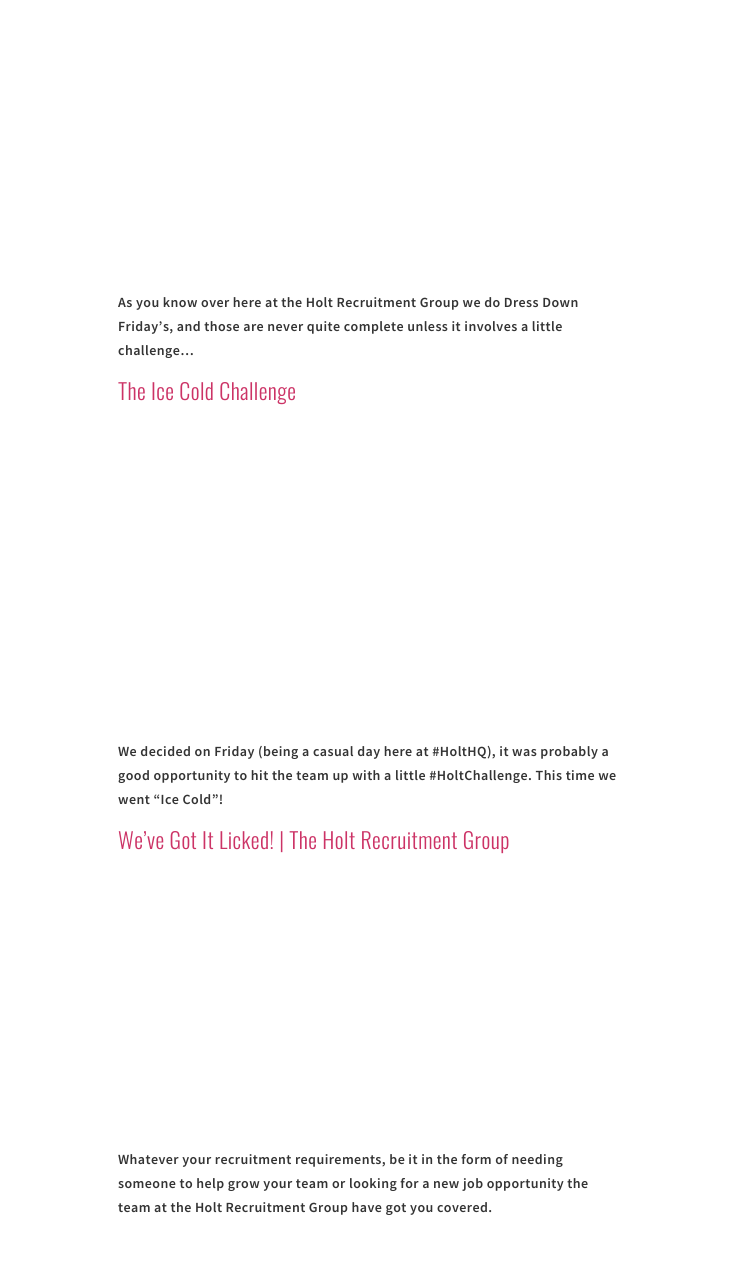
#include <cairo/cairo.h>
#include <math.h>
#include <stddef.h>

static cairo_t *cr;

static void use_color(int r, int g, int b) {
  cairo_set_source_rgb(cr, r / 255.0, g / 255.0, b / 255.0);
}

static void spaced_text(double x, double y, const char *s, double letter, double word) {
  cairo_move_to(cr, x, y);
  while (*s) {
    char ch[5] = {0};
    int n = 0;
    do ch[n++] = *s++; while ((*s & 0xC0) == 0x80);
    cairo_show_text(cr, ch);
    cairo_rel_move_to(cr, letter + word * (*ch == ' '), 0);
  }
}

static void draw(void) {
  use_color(255, 255, 255);
  cairo_paint(cr);
  cairo_select_font_face(cr, "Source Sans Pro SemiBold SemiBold", CAIRO_FONT_SLANT_NORMAL, CAIRO_FONT_WEIGHT_NORMAL);
  cairo_set_font_size(cr, 14);
  use_color(51, 51, 51);
  spaced_text(118, 307, "As you know over here at the Holt Recruitment Group we do Dress Down", 0.42, 0);
  spaced_text(118, 331, "Friday’s, and those are never quite complete unless it involves a little", 0.42, 0);
  spaced_text(118, 355, "challenge…", 0.42, 0);
  cairo_select_font_face(cr, "Oswald Light", CAIRO_FONT_SLANT_NORMAL, CAIRO_FONT_WEIGHT_NORMAL);
  cairo_set_font_size(cr, 22);
  use_color(204, 51, 102);
  spaced_text(118, 400, "The Ice Cold Challenge", 0.42, 0);
  cairo_select_font_face(cr, "Source Sans Pro SemiBold SemiBold", CAIRO_FONT_SLANT_NORMAL, CAIRO_FONT_WEIGHT_NORMAL);
  cairo_set_font_size(cr, 14);
  use_color(51, 51, 51);
  spaced_text(118, 756, "We decided on Friday (being a casual day here at #HoltHQ), it was probably a", 0.42, 0);
  spaced_text(118, 780, "good opportunity to hit the team up with a little #HoltChallenge. This time we", 0.42, 0);
  spaced_text(118, 804, "went “Ice Cold”!", 0.42, 0);
  cairo_select_font_face(cr, "Oswald Light", CAIRO_FONT_SLANT_NORMAL, CAIRO_FONT_WEIGHT_NORMAL);
  cairo_set_font_size(cr, 22);
  use_color(204, 51, 102);
  spaced_text(118, 849, "We’ve Got It Licked! | The Holt Recruitment Group", 0.42, 0);
  cairo_select_font_face(cr, "Source Sans Pro SemiBold SemiBold", CAIRO_FONT_SLANT_NORMAL, CAIRO_FONT_WEIGHT_NORMAL);
  cairo_set_font_size(cr, 14);
  use_color(51, 51, 51);
  spaced_text(118, 1164, "Whatever your recruitment requirements, be it in the form of needing", 0.42, 0);
  spaced_text(118, 1188, "someone to help grow your team or looking for a new job opportunity the", 0.42, 0);
  spaced_text(118, 1212, "team at the Holt Recruitment Group have got you covered.", 0.42, 0);
}

int main(void) {
  cairo_surface_t *surface = cairo_image_surface_create(CAIRO_FORMAT_RGB24, 735, 1261);
  cr = cairo_create(surface);
  cairo_font_options_t *options = cairo_font_options_create();
  cairo_font_options_set_hint_metrics(options, CAIRO_HINT_METRICS_OFF);
  cairo_font_options_set_hint_style(options, CAIRO_HINT_STYLE_NONE);
  cairo_set_font_options(cr, options);
  cairo_set_miter_limit(cr, 4);
  draw();
  cairo_surface_write_to_png(surface, "out.png");
  cairo_font_options_destroy(options);
  cairo_destroy(cr);
  cairo_surface_destroy(surface);
  return 0;
}
